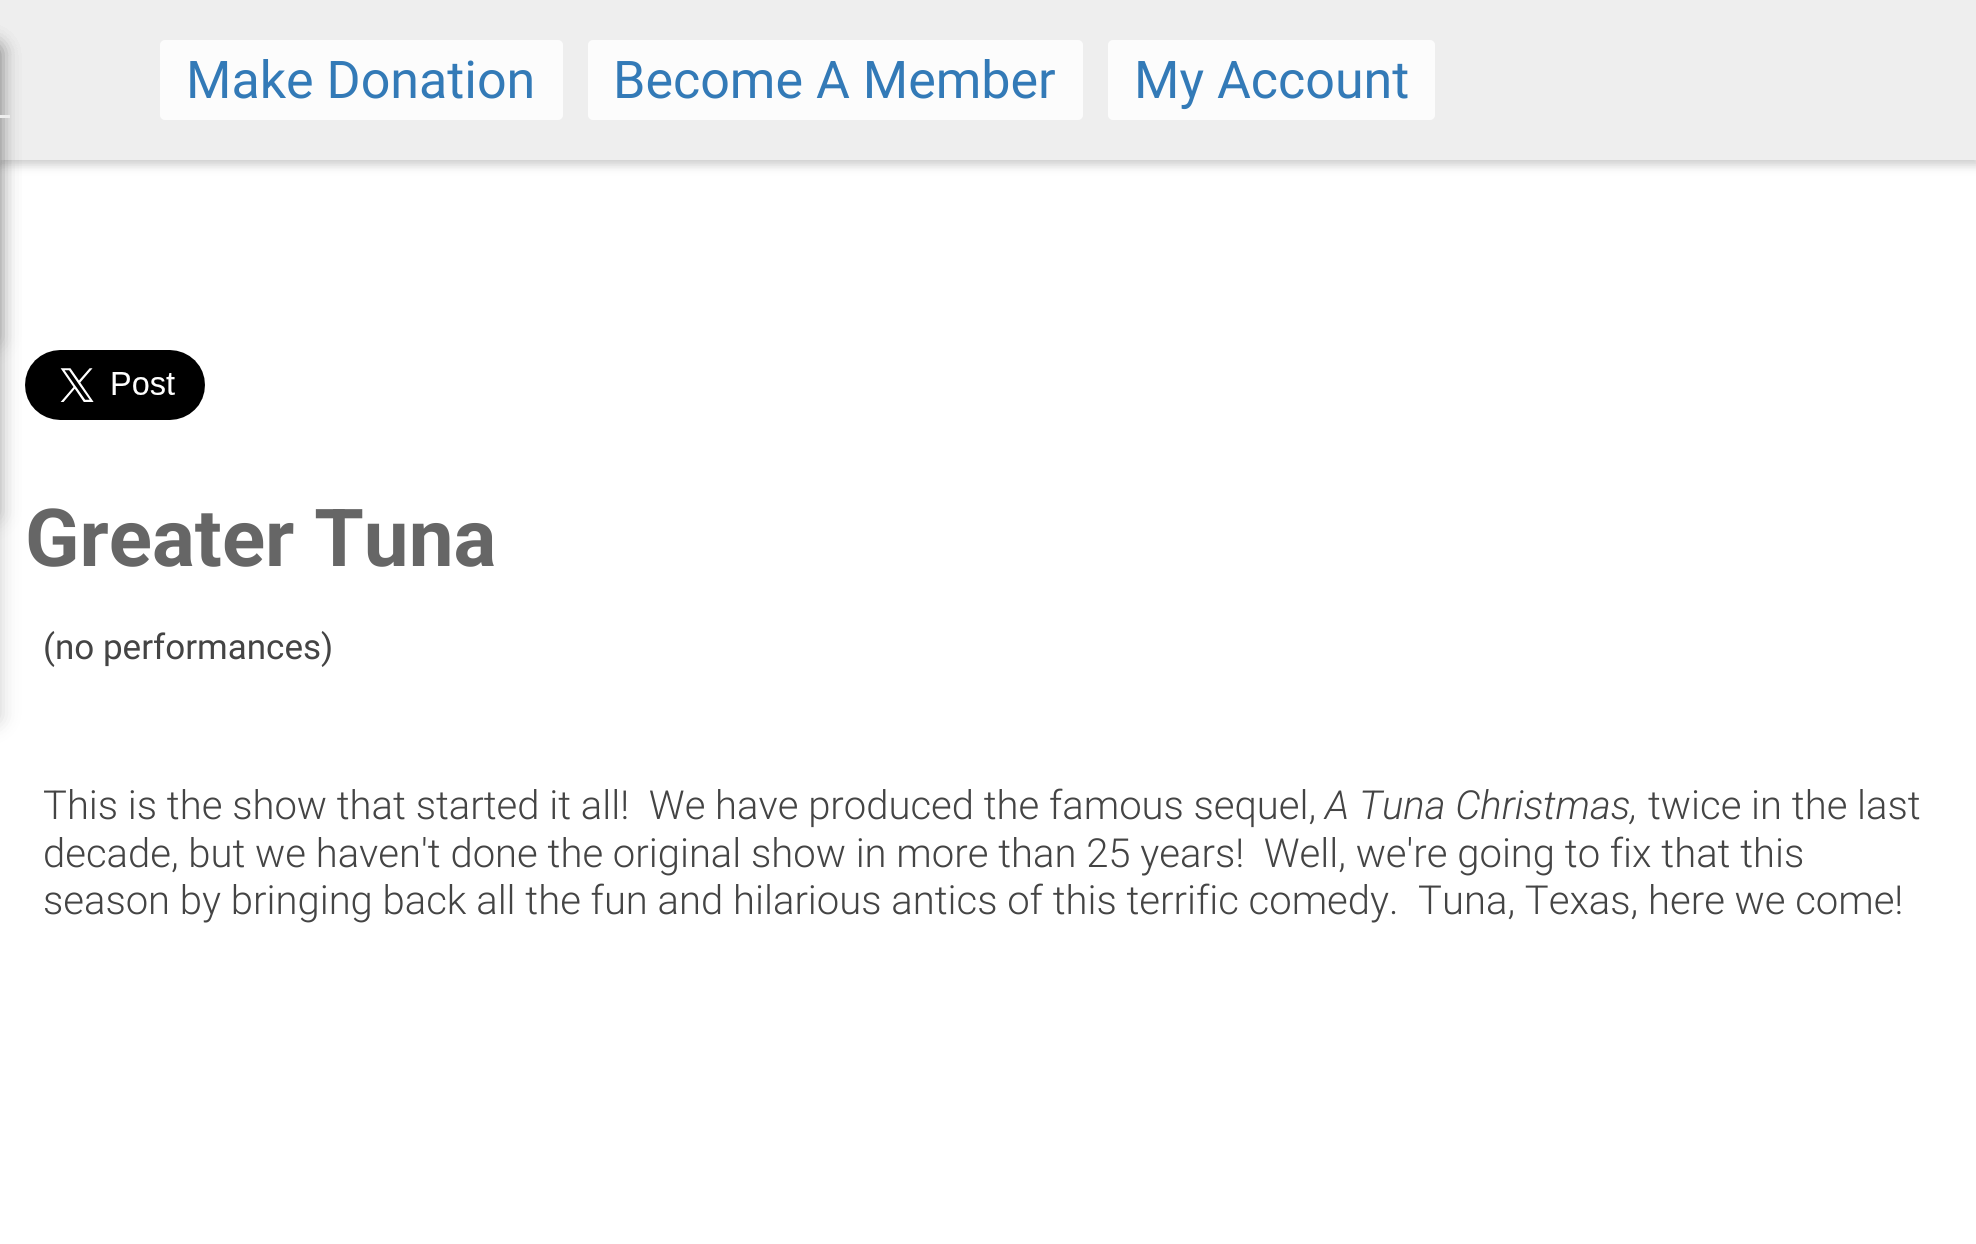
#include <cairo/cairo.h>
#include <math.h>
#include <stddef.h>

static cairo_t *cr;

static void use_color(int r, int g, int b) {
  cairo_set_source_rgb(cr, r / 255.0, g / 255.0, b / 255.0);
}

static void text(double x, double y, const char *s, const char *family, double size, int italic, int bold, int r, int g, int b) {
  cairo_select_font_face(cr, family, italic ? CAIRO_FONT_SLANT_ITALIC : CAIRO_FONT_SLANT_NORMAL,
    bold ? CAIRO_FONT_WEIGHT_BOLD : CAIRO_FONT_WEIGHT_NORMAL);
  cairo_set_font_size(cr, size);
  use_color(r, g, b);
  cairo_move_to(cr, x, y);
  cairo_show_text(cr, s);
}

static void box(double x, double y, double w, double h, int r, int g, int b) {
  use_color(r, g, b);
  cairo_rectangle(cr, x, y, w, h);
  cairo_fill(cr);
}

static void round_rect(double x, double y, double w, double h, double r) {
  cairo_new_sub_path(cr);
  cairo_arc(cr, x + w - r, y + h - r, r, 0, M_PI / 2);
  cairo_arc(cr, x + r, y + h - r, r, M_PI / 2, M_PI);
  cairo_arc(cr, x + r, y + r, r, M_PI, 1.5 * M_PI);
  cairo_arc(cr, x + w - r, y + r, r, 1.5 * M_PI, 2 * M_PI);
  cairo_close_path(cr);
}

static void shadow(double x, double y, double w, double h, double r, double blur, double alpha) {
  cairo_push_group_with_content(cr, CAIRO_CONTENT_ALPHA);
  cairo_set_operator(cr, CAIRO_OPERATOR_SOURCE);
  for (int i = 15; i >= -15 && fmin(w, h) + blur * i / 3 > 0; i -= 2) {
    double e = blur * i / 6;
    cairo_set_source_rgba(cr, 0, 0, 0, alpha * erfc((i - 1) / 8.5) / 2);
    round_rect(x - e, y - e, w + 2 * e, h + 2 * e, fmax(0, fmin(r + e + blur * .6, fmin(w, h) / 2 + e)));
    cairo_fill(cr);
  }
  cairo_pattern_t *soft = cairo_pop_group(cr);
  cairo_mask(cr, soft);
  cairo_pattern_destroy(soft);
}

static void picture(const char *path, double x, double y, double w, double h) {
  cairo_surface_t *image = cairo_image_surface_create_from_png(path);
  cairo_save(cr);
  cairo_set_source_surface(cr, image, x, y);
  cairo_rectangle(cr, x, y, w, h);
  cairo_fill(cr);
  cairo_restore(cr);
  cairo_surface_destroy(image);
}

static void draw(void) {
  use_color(255, 255, 255);
  cairo_paint(cr);
  use_color(0, 0, 0);
  shadow(0, 5, 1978, 160, 0, 5, 0.2);
  box(0, 0, 1976, 160, 238, 238, 238);
  use_color(252, 252, 252);
  round_rect(160, 40, 403, 80, 5);
  cairo_fill(cr);
  round_rect(588, 40, 495, 80, 5);
  cairo_fill(cr);
  round_rect(1108, 40, 327, 80, 5);
  cairo_fill(cr);
  picture("img_01.png", 25, 350, 180, 70);
  use_color(0, 0, 0);
  shadow(-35, 45, 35, 678, 5, 10, 0.2);
  shadow(-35, 45, 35, 300, 5, 10, 0.2);
  shadow(-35, 45, 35, 475, 5, 10, 0.2);
  box(0, 115, 10, 3, 238, 238, 238);
  text(186, 98, "Make Donation", "Roboto", 52, 0, 0, 51, 122, 183);
  text(613, 98, "Become A Member", "Roboto", 52, 0, 0, 51, 122, 183);
  text(1134, 98, "My Account", "Roboto", 52, 0, 0, 51, 122, 183);
  text(25, 566, "Greater Tuna", "Roboto", 80, 0, 1, 102, 102, 102);
  text(43, 659, "(no performances)", "Roboto", 35, 0, 0, 68, 68, 68);
  text(43, 819, "This is the show that started it all!  We have produced the famous sequel,", "Roboto Light", 40, 0, 0, 68, 68, 68);
  text(1325, 819, "A Tuna Christmas,", "Roboto Light", 40, 1, 0, 68, 68, 68);
  text(1648, 819, "twice in the last", "Roboto Light", 40, 0, 0, 68, 68, 68);
  text(43, 867, "decade, but we haven't done the original show in more than 25 years!  Well, we're going to fix that this", "Roboto Light", 40, 0, 0, 68, 68, 68);
  text(43, 914, "season by bringing back all the fun and hilarious antics of this terrific comedy.  Tuna, Texas, here we come!", "Roboto Light", 40, 0, 0, 68, 68, 68);
}

int main(void) {
  cairo_surface_t *surface = cairo_image_surface_create(CAIRO_FORMAT_RGB24, 1976, 1244);
  cr = cairo_create(surface);
  cairo_font_options_t *options = cairo_font_options_create();
  cairo_font_options_set_hint_metrics(options, CAIRO_HINT_METRICS_OFF);
  cairo_font_options_set_hint_style(options, CAIRO_HINT_STYLE_NONE);
  cairo_set_font_options(cr, options);
  cairo_set_miter_limit(cr, 4);
  draw();
  cairo_surface_write_to_png(surface, "out.png");
  cairo_font_options_destroy(options);
  cairo_destroy(cr);
  cairo_surface_destroy(surface);
  return 0;
}
